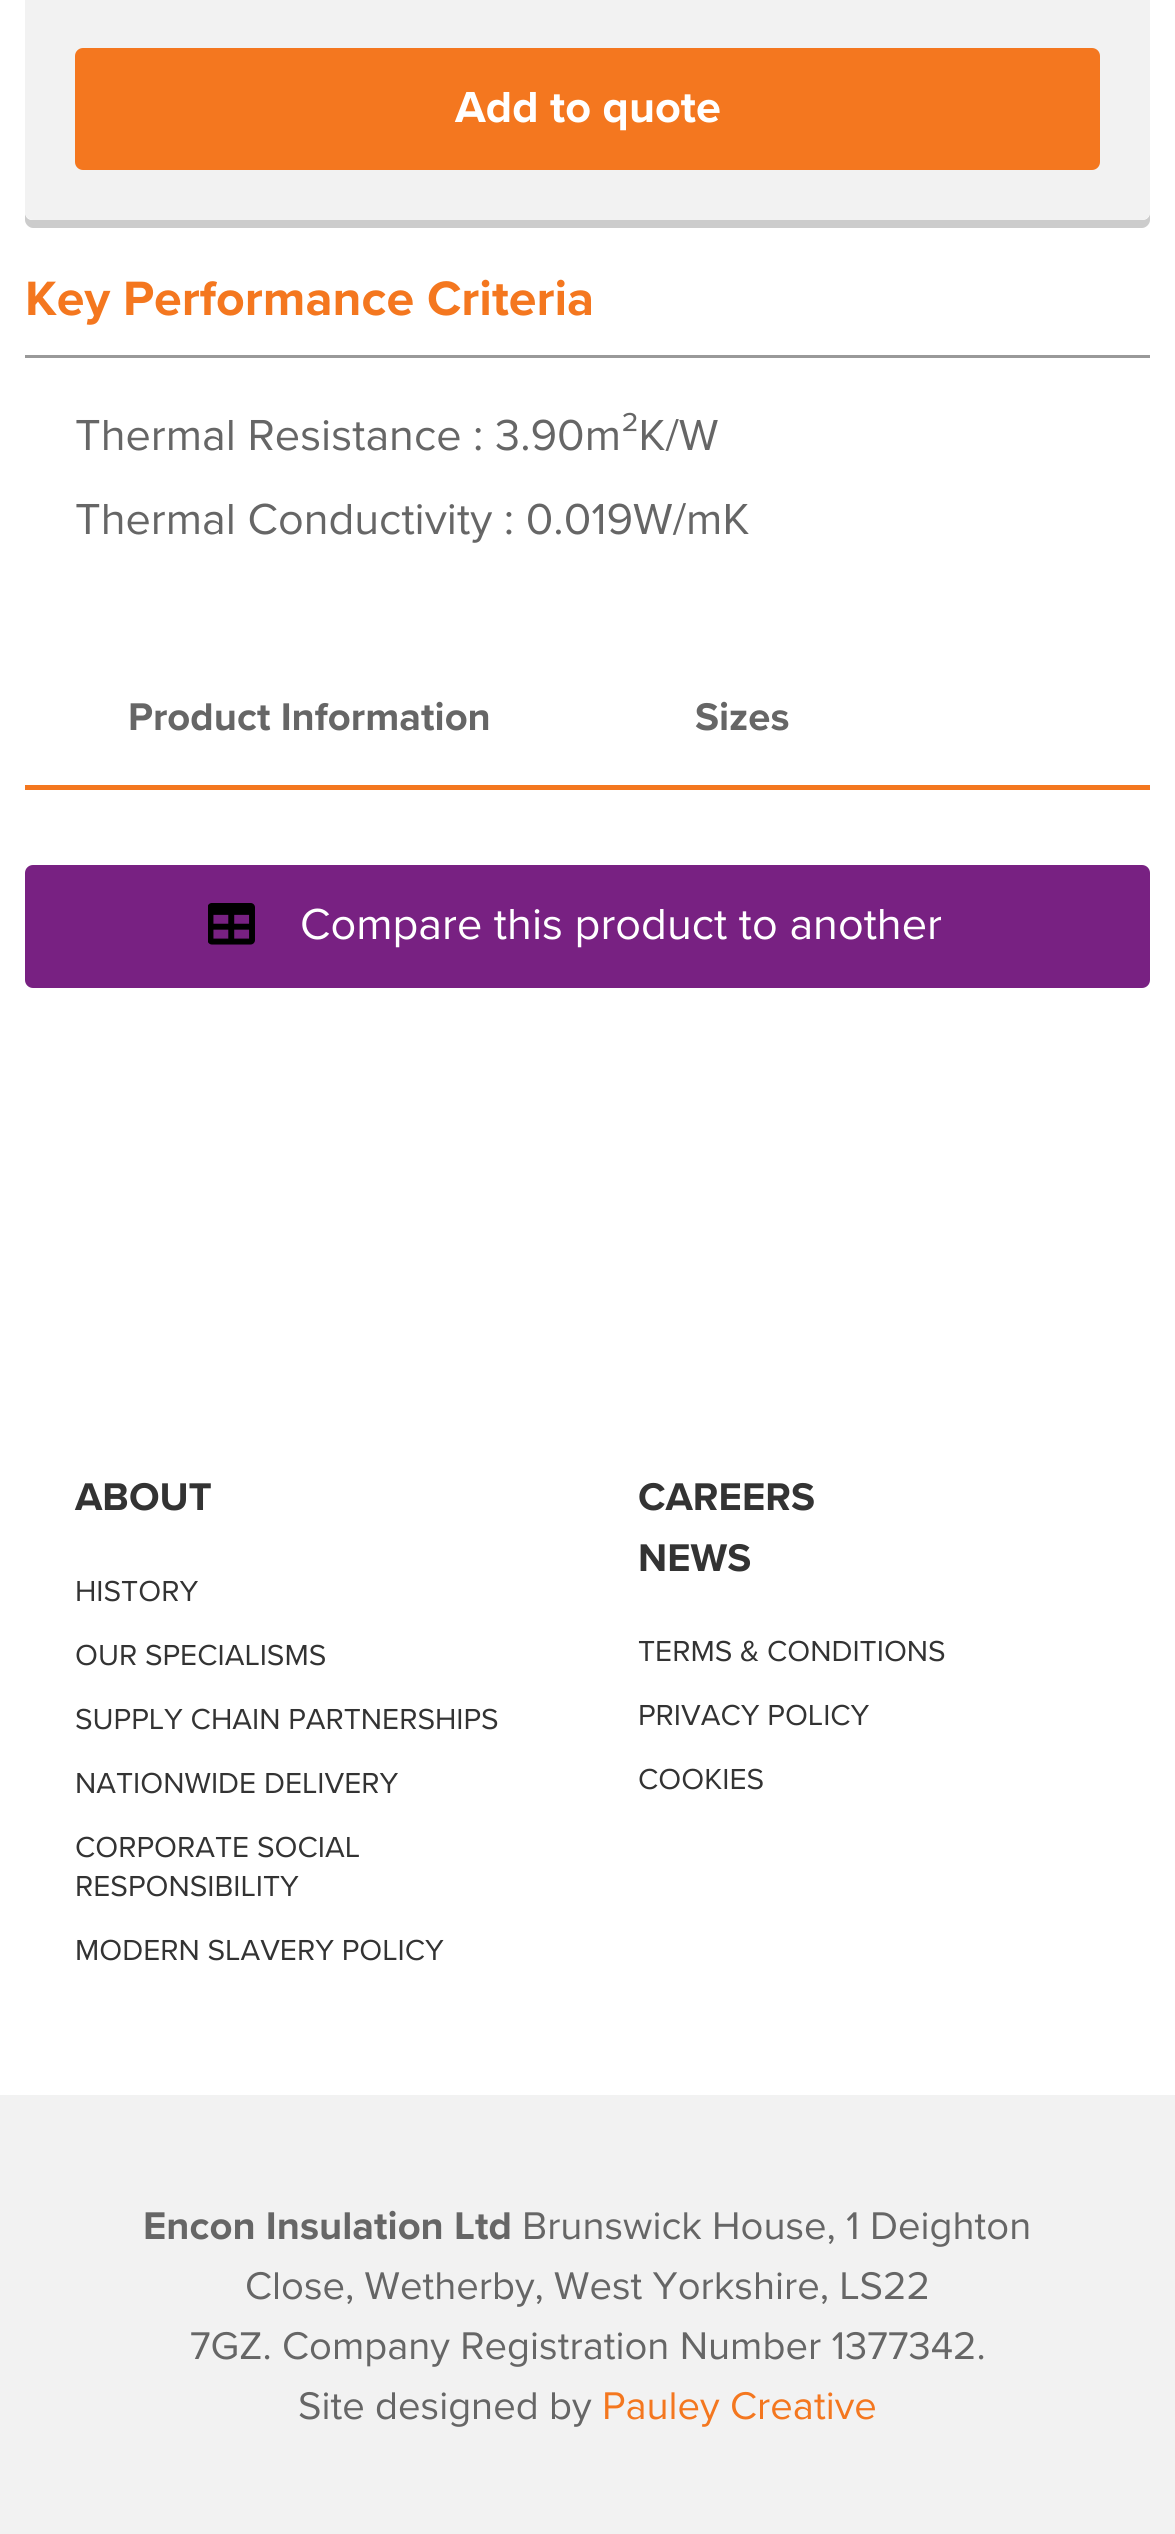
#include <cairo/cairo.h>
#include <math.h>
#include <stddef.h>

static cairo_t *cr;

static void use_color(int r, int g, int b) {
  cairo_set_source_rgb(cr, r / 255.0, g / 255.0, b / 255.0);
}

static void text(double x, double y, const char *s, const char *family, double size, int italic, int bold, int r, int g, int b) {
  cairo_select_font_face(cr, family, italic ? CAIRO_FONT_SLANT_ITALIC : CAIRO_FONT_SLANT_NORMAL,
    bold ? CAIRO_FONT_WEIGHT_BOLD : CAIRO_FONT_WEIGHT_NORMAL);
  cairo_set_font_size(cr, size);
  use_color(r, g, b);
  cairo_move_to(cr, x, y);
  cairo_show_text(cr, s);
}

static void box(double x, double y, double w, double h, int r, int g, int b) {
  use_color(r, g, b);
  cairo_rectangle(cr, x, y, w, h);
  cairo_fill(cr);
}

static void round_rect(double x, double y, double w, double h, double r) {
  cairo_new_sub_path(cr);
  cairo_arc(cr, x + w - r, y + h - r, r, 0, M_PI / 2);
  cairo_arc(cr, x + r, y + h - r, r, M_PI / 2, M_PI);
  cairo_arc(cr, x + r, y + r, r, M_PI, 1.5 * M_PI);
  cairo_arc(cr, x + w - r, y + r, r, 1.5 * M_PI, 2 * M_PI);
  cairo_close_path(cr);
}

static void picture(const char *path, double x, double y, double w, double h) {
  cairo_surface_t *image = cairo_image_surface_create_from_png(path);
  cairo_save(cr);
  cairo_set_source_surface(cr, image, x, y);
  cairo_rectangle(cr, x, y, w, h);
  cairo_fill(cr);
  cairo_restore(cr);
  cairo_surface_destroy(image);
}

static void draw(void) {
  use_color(255, 255, 255);
  cairo_paint(cr);
  use_color(204, 204, 204);
  cairo_new_path(cr);
  cairo_move_to(cr, 25, 212);
  cairo_line_to(cr, 25, 220);
  cairo_curve_to(cr, 25, 224, 29, 228, 33, 228);
  cairo_line_to(cr, 1142, 228);
  cairo_curve_to(cr, 1146, 228, 1150, 224, 1150, 220);
  cairo_line_to(cr, 1150, 212);
  cairo_curve_to(cr, 1150, 217, 1147, 220, 1142, 220);
  cairo_line_to(cr, 32, 220);
  cairo_curve_to(cr, 28, 220, 25, 217, 25, 212);
  cairo_close_path(cr);
  cairo_fill(cr);
  use_color(242, 242, 242);
  round_rect(25, -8, 1125, 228, 8);
  cairo_fill(cr);
  use_color(244, 119, 31);
  round_rect(76.5, 49.5, 1022, 119, 6.5);
  cairo_fill_preserve(cr);
  cairo_set_line_width(cr, 3);
  cairo_stroke(cr);
  box(25, 355, 1125, 3, 153, 153, 153);
  box(25, 785, 1125, 5, 244, 119, 31);
  use_color(120, 33, 130);
  round_rect(26.5, 866.5, 1122, 120, 6.5);
  cairo_fill_preserve(cr);
  cairo_stroke(cr);
  picture("img_01.png", 208, 903, 47, 42);
  box(0, 2095, 1175, 439, 242, 242, 242);
  text(455, 122, "Add to quote", "Proxima Nova", 45, 0, 1, 255, 255, 255);
  text(25, 315, "Key Performance Criteria", "Proxima Nova", 50, 0, 1, 244, 119, 31);
  text(75, 450, "Thermal Resistance : 3.90m²K/W", "Proxima Nova", 45, 0, 0, 102, 102, 102);
  text(75, 534, "Thermal Conductivity : 0.019W/mK", "Proxima Nova", 45, 0, 0, 102, 102, 102);
  text(128, 730, "Product Information", "Proxima Nova", 40, 0, 1, 102, 102, 102);
  text(695, 730, "Sizes", "Proxima Nova", 40, 0, 1, 102, 102, 102);
  text(300, 939, "Compare this product to another", "Proxima Nova", 45, 0, 0, 255, 255, 255);
  text(75, 1510, "ABOUT", "Proxima Nova", 40, 0, 1, 51, 51, 51);
  text(75, 1601, "HISTORY", "Proxima Nova", 30, 0, 0, 51, 51, 51);
  text(75, 1665, "OUR SPECIALISMS", "Proxima Nova", 30, 0, 0, 51, 51, 51);
  text(75, 1729, "SUPPLY CHAIN PARTNERSHIPS", "Proxima Nova", 30, 0, 0, 51, 51, 51);
  text(75, 1793, "NATIONWIDE DELIVERY", "Proxima Nova", 30, 0, 0, 51, 51, 51);
  text(75, 1857, "CORPORATE SOCIAL", "Proxima Nova", 30, 0, 0, 51, 51, 51);
  text(75, 1896, "RESPONSIBILITY", "Proxima Nova", 30, 0, 0, 51, 51, 51);
  text(75, 1960, "MODERN SLAVERY POLICY", "Proxima Nova", 30, 0, 0, 51, 51, 51);
  text(638, 1510, "CAREERS", "Proxima Nova", 40, 0, 1, 51, 51, 51);
  text(638, 1571, "NEWS", "Proxima Nova", 40, 0, 1, 51, 51, 51);
  text(638, 1661, "TERMS & CONDITIONS", "Proxima Nova", 30, 0, 0, 51, 51, 51);
  text(638, 1725, "PRIVACY POLICY", "Proxima Nova", 30, 0, 0, 51, 51, 51);
  text(638, 1789, "COOKIES", "Proxima Nova", 30, 0, 0, 51, 51, 51);
  text(143, 2239, "Encon Insulation Ltd", "Proxima Nova", 40, 0, 1, 102, 102, 102);
  text(522, 2239, "Brunswick House, 1 Deighton", "Proxima Nova", 40, 0, 0, 102, 102, 102);
  text(245, 2299, "Close, Wetherby, West Yorkshire, LS22", "Proxima Nova", 40, 0, 0, 102, 102, 102);
  text(190, 2359, "7GZ. Company Registration Number 1377342.", "Proxima Nova", 40, 0, 0, 102, 102, 102);
  text(298, 2419, "Site designed by", "Proxima Nova", 40, 0, 0, 102, 102, 102);
  text(602, 2419, "Pauley Creative", "Proxima Nova", 40, 0, 0, 244, 119, 31);
}

int main(void) {
  cairo_surface_t *surface = cairo_image_surface_create(CAIRO_FORMAT_RGB24, 1175, 2534);
  cr = cairo_create(surface);
  cairo_font_options_t *options = cairo_font_options_create();
  cairo_font_options_set_hint_metrics(options, CAIRO_HINT_METRICS_OFF);
  cairo_font_options_set_hint_style(options, CAIRO_HINT_STYLE_NONE);
  cairo_set_font_options(cr, options);
  cairo_set_miter_limit(cr, 4);
  draw();
  cairo_surface_write_to_png(surface, "out.png");
  cairo_font_options_destroy(options);
  cairo_destroy(cr);
  cairo_surface_destroy(surface);
  return 0;
}
